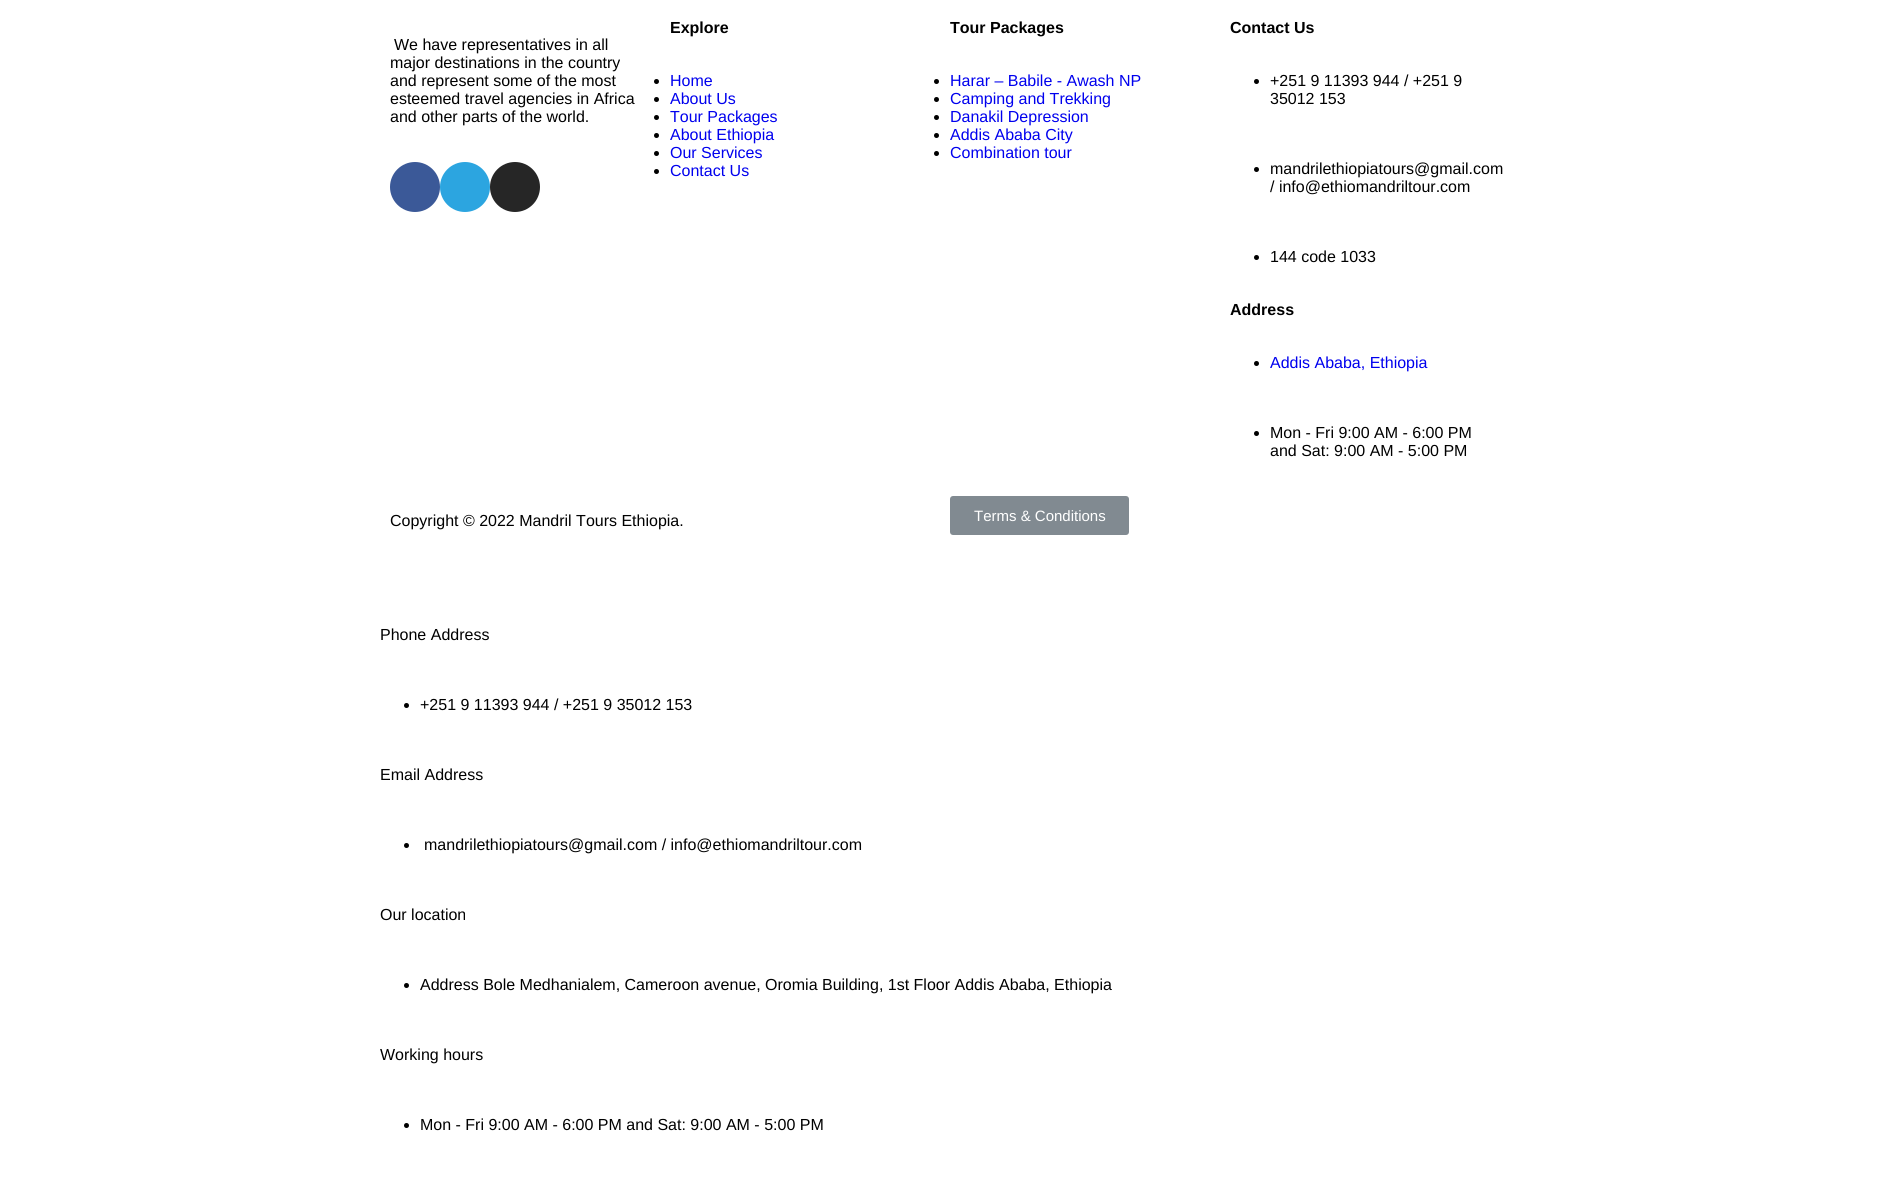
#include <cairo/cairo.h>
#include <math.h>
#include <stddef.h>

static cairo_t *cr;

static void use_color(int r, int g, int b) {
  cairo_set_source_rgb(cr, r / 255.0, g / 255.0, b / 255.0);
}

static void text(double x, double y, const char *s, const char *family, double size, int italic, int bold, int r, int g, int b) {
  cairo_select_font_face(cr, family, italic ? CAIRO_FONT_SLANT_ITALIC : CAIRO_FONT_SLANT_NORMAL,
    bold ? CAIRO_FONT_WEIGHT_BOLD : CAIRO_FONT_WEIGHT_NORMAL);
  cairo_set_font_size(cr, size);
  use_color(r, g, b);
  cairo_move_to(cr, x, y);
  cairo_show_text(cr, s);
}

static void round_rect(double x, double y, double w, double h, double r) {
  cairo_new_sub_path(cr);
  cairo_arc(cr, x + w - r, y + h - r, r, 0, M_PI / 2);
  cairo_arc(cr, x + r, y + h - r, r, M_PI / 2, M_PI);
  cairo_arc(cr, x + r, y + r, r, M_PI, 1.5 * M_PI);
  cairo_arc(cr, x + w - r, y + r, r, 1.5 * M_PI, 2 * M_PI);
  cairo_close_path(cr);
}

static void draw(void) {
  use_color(255, 255, 255);
  cairo_paint(cr);
  use_color(59, 89, 152);
  cairo_arc(cr, 415, 187, 25, 0, 2 * M_PI);
  cairo_fill(cr);
  use_color(44, 165, 224);
  cairo_arc(cr, 465, 187, 25, 0, 2 * M_PI);
  cairo_fill(cr);
  use_color(38, 38, 38);
  cairo_arc(cr, 515, 187, 25, 0, 2 * M_PI);
  cairo_fill(cr);
  use_color(0, 0, 0);
  cairo_arc(cr, 656.5, 81.5, 2.5, 0, 2 * M_PI);
  cairo_fill(cr);
  cairo_arc(cr, 656.5, 99.5, 2.5, 0, 2 * M_PI);
  cairo_fill(cr);
  cairo_arc(cr, 656.5, 117.5, 2.5, 0, 2 * M_PI);
  cairo_fill(cr);
  cairo_arc(cr, 656.5, 135.5, 2.5, 0, 2 * M_PI);
  cairo_fill(cr);
  cairo_arc(cr, 656.5, 153.5, 2.5, 0, 2 * M_PI);
  cairo_fill(cr);
  cairo_arc(cr, 656.5, 171.5, 2.5, 0, 2 * M_PI);
  cairo_fill(cr);
  cairo_arc(cr, 936.5, 81.5, 2.5, 0, 2 * M_PI);
  cairo_fill(cr);
  cairo_arc(cr, 936.5, 99.5, 2.5, 0, 2 * M_PI);
  cairo_fill(cr);
  cairo_arc(cr, 936.5, 117.5, 2.5, 0, 2 * M_PI);
  cairo_fill(cr);
  cairo_arc(cr, 936.5, 135.5, 2.5, 0, 2 * M_PI);
  cairo_fill(cr);
  cairo_arc(cr, 936.5, 153.5, 2.5, 0, 2 * M_PI);
  cairo_fill(cr);
  cairo_arc(cr, 1256.5, 81.5, 2.5, 0, 2 * M_PI);
  cairo_fill(cr);
  cairo_arc(cr, 1256.5, 169.5, 2.5, 0, 2 * M_PI);
  cairo_fill(cr);
  cairo_arc(cr, 1256.5, 257.5, 2.5, 0, 2 * M_PI);
  cairo_fill(cr);
  cairo_arc(cr, 1256.5, 363.5, 2.5, 0, 2 * M_PI);
  cairo_fill(cr);
  cairo_arc(cr, 1256.5, 433.5, 2.5, 0, 2 * M_PI);
  cairo_fill(cr);
  use_color(129, 138, 145);
  round_rect(950, 496, 179, 39, 3);
  cairo_fill(cr);
  use_color(0, 0, 0);
  cairo_arc(cr, 406.5, 705.5, 2.5, 0, 2 * M_PI);
  cairo_fill(cr);
  cairo_arc(cr, 406.5, 845.5, 2.5, 0, 2 * M_PI);
  cairo_fill(cr);
  cairo_arc(cr, 406.5, 985.5, 2.5, 0, 2 * M_PI);
  cairo_fill(cr);
  cairo_arc(cr, 406.5, 1125.5, 2.5, 0, 2 * M_PI);
  cairo_fill(cr);
  text(394, 50, "We have representatives in all", "Liberation Sans", 16, 0, 0, 0, 0, 0);
  text(390, 68, "major destinations in the country", "Liberation Sans", 16, 0, 0, 0, 0, 0);
  text(390, 86, "and represent some of the most", "Liberation Sans", 16, 0, 0, 0, 0, 0);
  text(390, 104, "esteemed travel agencies in Africa", "Liberation Sans", 16, 0, 0, 0, 0, 0);
  text(390, 122, "and other parts of the world.", "Liberation Sans", 16, 0, 0, 0, 0, 0);
  text(670, 33, "Explore", "Liberation Sans", 16, 0, 1, 0, 0, 0);
  text(670, 86, "Home", "Liberation Sans", 16, 0, 0, 0, 0, 238);
  text(670, 104, "About Us", "Liberation Sans", 16, 0, 0, 0, 0, 238);
  text(670, 122, "Tour Packages", "Liberation Sans", 16, 0, 0, 0, 0, 238);
  text(670, 140, "About Ethiopia", "Liberation Sans", 16, 0, 0, 0, 0, 238);
  text(670, 158, "Our Services", "Liberation Sans", 16, 0, 0, 0, 0, 238);
  text(670, 176, "Contact Us", "Liberation Sans", 16, 0, 0, 0, 0, 238);
  text(950, 33, "Tour Packages", "Liberation Sans", 16, 0, 1, 0, 0, 0);
  text(950, 86, "Harar – Babile - Awash NP", "Liberation Sans", 16, 0, 0, 0, 0, 238);
  text(950, 104, "Camping and Trekking", "Liberation Sans", 16, 0, 0, 0, 0, 238);
  text(950, 122, "Danakil Depression", "Liberation Sans", 16, 0, 0, 0, 0, 238);
  text(950, 140, "Addis Ababa City", "Liberation Sans", 16, 0, 0, 0, 0, 238);
  text(950, 158, "Combination tour", "Liberation Sans", 16, 0, 0, 0, 0, 238);
  text(1230, 33, "Contact Us", "Liberation Sans", 16, 0, 1, 0, 0, 0);
  text(1270, 86, "+251 9 11393 944 / +251 9", "Liberation Sans", 16, 0, 0, 0, 0, 0);
  text(1270, 104, "35012 153", "Liberation Sans", 16, 0, 0, 0, 0, 0);
  text(1270, 174, "mandrilethiopiatours@gmail.com", "Liberation Sans", 16, 0, 0, 0, 0, 0);
  text(1270, 192, "/ info@ethiomandriltour.com", "Liberation Sans", 16, 0, 0, 0, 0, 0);
  text(1270, 262, "144 code 1033", "Liberation Sans", 16, 0, 0, 0, 0, 0);
  text(1230, 315, "Address", "Liberation Sans", 16, 0, 1, 0, 0, 0);
  text(1270, 368, "Addis Ababa, Ethiopia", "Liberation Sans", 16, 0, 0, 0, 0, 238);
  text(1270, 438, "Mon - Fri 9:00 AM - 6:00 PM", "Liberation Sans", 16, 0, 0, 0, 0, 0);
  text(1270, 456, "and Sat: 9:00 AM - 5:00 PM", "Liberation Sans", 16, 0, 0, 0, 0, 0);
  text(390, 526, "Copyright © 2022 Mandril Tours Ethiopia.", "Liberation Sans", 16, 0, 0, 0, 0, 0);
  text(974, 521, "Terms & Conditions", "Liberation Sans", 15, 0, 0, 255, 255, 255);
  text(380, 640, "Phone Address", "Liberation Sans", 16, 0, 0, 0, 0, 0);
  text(420, 710, "+251 9 11393 944 / +251 9 35012 153", "Liberation Sans", 16, 0, 0, 0, 0, 0);
  text(380, 780, "Email Address", "Liberation Sans", 16, 0, 0, 0, 0, 0);
  text(424, 850, "mandrilethiopiatours@gmail.com / info@ethiomandriltour.com", "Liberation Sans", 16, 0, 0, 0, 0, 0);
  text(380, 920, "Our location", "Liberation Sans", 16, 0, 0, 0, 0, 0);
  text(420, 990, "Address Bole Medhanialem, Cameroon avenue, Oromia Building, 1st Floor Addis Ababa, Ethiopia", "Liberation Sans", 16, 0, 0, 0, 0, 0);
  text(380, 1060, "Working hours", "Liberation Sans", 16, 0, 0, 0, 0, 0);
  text(420, 1130, "Mon - Fri 9:00 AM - 6:00 PM and Sat: 9:00 AM - 5:00 PM", "Liberation Sans", 16, 0, 0, 0, 0, 0);
}

int main(void) {
  cairo_surface_t *surface = cairo_image_surface_create(CAIRO_FORMAT_RGB24, 1879, 1178);
  cr = cairo_create(surface);
  cairo_font_options_t *options = cairo_font_options_create();
  cairo_font_options_set_hint_metrics(options, CAIRO_HINT_METRICS_OFF);
  cairo_font_options_set_hint_style(options, CAIRO_HINT_STYLE_NONE);
  cairo_set_font_options(cr, options);
  cairo_set_miter_limit(cr, 4);
  draw();
  cairo_surface_write_to_png(surface, "out.png");
  cairo_font_options_destroy(options);
  cairo_destroy(cr);
  cairo_surface_destroy(surface);
  return 0;
}
